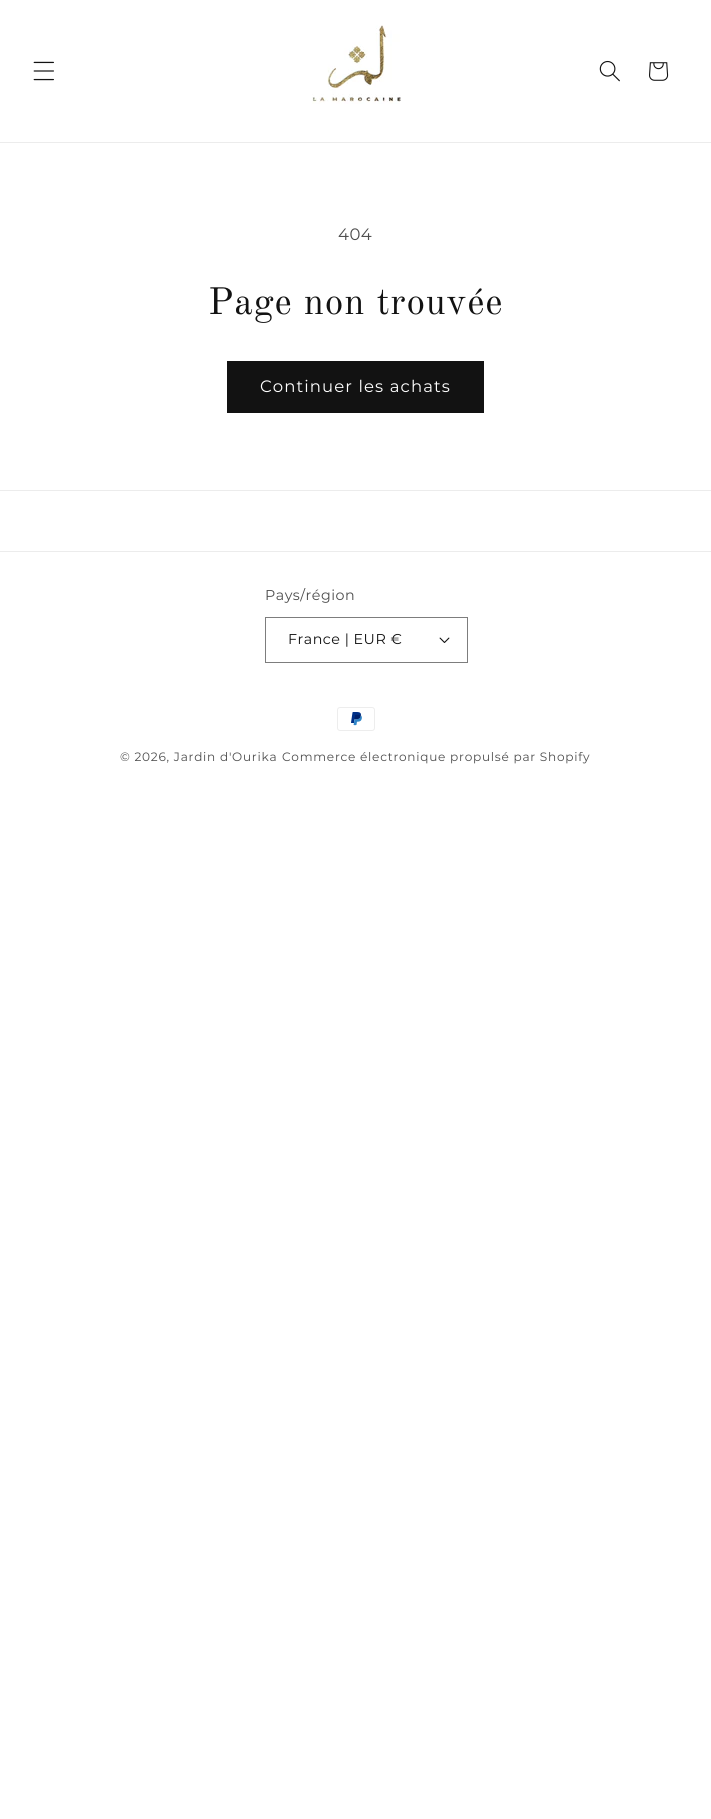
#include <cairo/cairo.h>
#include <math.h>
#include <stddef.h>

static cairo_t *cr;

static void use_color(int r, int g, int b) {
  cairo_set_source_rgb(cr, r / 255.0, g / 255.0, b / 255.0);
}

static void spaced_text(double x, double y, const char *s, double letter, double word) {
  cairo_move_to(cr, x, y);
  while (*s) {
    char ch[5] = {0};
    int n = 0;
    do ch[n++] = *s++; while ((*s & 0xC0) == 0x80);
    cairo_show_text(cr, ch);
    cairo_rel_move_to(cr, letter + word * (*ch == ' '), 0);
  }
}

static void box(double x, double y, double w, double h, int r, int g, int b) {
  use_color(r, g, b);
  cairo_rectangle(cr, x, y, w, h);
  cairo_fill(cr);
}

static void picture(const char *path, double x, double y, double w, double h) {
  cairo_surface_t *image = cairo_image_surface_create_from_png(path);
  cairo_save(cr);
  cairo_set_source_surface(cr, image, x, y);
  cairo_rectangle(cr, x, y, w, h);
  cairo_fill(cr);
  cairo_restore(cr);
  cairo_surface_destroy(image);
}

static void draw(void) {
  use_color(255, 255, 255);
  cairo_paint(cr);
  box(0, 142, 711, 1, 236, 236, 236);
  picture("img_01.png", 33, 61, 21, 20);
  picture("img_02.png", 312, 25, 89, 79);
  picture("img_03.png", 599, 60, 21, 22);
  picture("img_04.png", 649, 62, 20, 19);
  box(227, 361, 257, 52, 18, 18, 18);
  box(0, 490, 711, 1, 236, 236, 236);
  box(0, 551, 711, 1, 236, 236, 236);
  picture("img_05.png", 439, 637, 11, 6);
  cairo_rectangle(cr, 265.5, 617.5, 202, 45);
  use_color(125, 125, 125);
  cairo_set_line_width(cr, 1);
  cairo_stroke(cr);
  picture("img_06.png", 337, 707, 38, 24);
  cairo_select_font_face(cr, "Montserrat", CAIRO_FONT_SLANT_NORMAL, CAIRO_FONT_WEIGHT_NORMAL);
  cairo_set_font_size(cr, 16.5);
  use_color(77, 77, 77);
  spaced_text(338, 240, "404", 0.5, 0);
  cairo_select_font_face(cr, "Old Standard TT", CAIRO_FONT_SLANT_NORMAL, CAIRO_FONT_WEIGHT_NORMAL);
  cairo_set_font_size(cr, 37.5);
  use_color(18, 18, 18);
  spaced_text(208, 314, "Page non trouvée", 0.75, 0);
  cairo_select_font_face(cr, "Montserrat", CAIRO_FONT_SLANT_NORMAL, CAIRO_FONT_WEIGHT_NORMAL);
  cairo_set_font_size(cr, 16.5);
  use_color(255, 255, 255);
  spaced_text(260, 392, "Continuer les achats", 1.1, 0);
  cairo_set_font_size(cr, 14.25);
  use_color(77, 77, 77);
  spaced_text(265, 600, "Pays/région", 0.5, 0);
  use_color(18, 18, 18);
  spaced_text(288, 644, "France | EUR €", 0.5, 0);
  cairo_set_font_size(cr, 12.1);
  use_color(77, 77, 77);
  spaced_text(120, 761, "© 2026, Jardin d'Ourika", 0.75, 0);
  spaced_text(282, 761, "Commerce électronique propulsé par Shopify", 0.75, 0);
}

int main(void) {
  cairo_surface_t *surface = cairo_image_surface_create(CAIRO_FORMAT_RGB24, 711, 1819);
  cr = cairo_create(surface);
  cairo_font_options_t *options = cairo_font_options_create();
  cairo_font_options_set_hint_metrics(options, CAIRO_HINT_METRICS_OFF);
  cairo_font_options_set_hint_style(options, CAIRO_HINT_STYLE_NONE);
  cairo_set_font_options(cr, options);
  cairo_set_miter_limit(cr, 4);
  draw();
  cairo_surface_write_to_png(surface, "out.png");
  cairo_font_options_destroy(options);
  cairo_destroy(cr);
  cairo_surface_destroy(surface);
  return 0;
}
